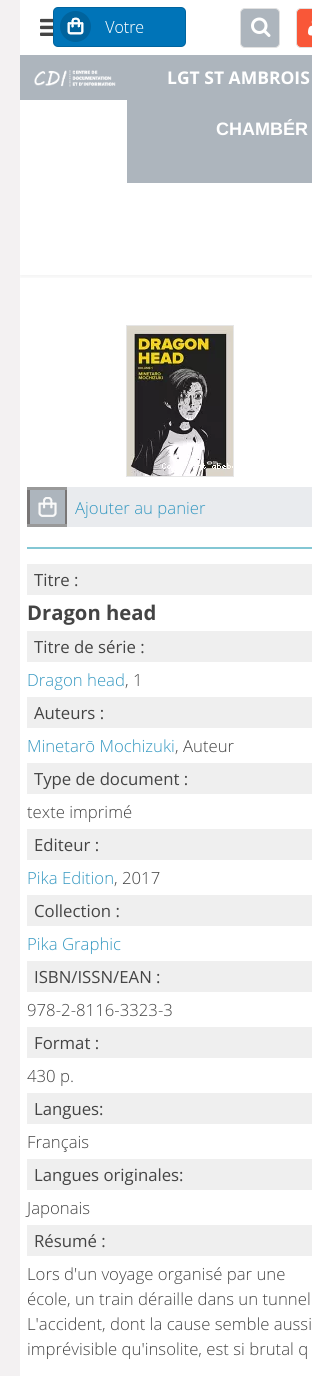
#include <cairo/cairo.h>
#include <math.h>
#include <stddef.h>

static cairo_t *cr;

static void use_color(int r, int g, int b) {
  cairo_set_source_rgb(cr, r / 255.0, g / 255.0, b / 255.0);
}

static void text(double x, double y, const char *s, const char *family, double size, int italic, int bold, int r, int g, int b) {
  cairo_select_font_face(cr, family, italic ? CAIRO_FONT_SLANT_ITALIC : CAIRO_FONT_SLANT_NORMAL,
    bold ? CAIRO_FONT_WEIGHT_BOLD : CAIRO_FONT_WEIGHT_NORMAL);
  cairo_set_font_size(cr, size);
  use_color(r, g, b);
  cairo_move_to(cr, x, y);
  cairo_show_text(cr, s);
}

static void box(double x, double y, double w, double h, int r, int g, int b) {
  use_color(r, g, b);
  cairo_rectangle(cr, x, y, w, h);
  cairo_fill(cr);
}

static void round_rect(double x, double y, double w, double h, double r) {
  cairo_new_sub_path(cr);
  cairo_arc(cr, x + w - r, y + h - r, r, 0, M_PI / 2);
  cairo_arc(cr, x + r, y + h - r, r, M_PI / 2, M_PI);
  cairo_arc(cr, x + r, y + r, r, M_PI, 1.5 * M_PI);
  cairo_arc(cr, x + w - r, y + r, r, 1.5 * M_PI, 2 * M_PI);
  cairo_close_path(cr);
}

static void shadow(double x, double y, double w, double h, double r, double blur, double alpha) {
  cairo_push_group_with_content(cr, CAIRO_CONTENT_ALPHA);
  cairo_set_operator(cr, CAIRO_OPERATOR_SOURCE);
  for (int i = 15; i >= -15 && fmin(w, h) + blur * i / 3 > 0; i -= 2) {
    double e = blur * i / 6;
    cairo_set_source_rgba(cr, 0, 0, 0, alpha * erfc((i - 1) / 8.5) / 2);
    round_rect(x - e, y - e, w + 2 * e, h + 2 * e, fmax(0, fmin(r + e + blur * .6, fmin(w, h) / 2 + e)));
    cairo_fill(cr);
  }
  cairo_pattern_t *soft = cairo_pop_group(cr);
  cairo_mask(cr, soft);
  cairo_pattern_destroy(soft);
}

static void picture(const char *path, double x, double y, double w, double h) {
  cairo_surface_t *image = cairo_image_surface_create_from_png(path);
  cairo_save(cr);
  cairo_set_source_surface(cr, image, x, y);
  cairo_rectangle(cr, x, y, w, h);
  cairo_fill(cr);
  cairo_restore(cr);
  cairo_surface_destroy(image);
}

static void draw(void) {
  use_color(243, 241, 242);
  cairo_paint(cr);
  box(20, 0, 292, 1376, 255, 255, 255);
  cairo_save(cr);
  cairo_rectangle(cr, 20, 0, 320, 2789);
  cairo_clip(cr);
  cairo_rectangle(cr, 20, 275, 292, 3);
  cairo_clip(cr);
  use_color(0, 0, 0);
  shadow(20, 2, 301, 275, 0, 3, 0.06);
  cairo_restore(cr);
  use_color(0, 116, 184);
  round_rect(53, 7, 133, 40, 5);
  cairo_fill(cr);
  round_rect(53.5, 7.5, 132, 39, 4.5);
  cairo_set_source_rgba(cr, 0, 0, 0, 0.14);
  cairo_set_line_width(cr, 1);
  cairo_stroke(cr);
  picture("img_01.png", 60, 11, 84, 31);
  picture("img_02.png", 40, 18, 13, 18);
  use_color(173, 181, 189);
  round_rect(240.5, 8.5, 39, 39, 4.5);
  cairo_fill_preserve(cr);
  use_color(225, 225, 225);
  cairo_stroke(cr);
  picture("img_03.png", 251, 17, 20, 20);
  use_color(249, 87, 56);
  round_rect(296.5, 8.5, 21, 39, 4.5);
  cairo_fill_preserve(cr);
  use_color(225, 225, 225);
  cairo_stroke(cr);
  picture("img_04.png", 308, 20, 4, 16);
  box(20, 55, 107, 45, 173, 181, 189);
  picture("img_05.png", 34, 70, 82, 17);
  box(127, 55, 185, 128, 173, 181, 189);
  cairo_rectangle(cr, 126.5, 325.5, 107, 151);
  use_color(230, 230, 230);
  cairo_stroke(cr);
  picture("img_06.png", 127, 326, 106, 150);
  box(27, 487, 40, 40, 153, 153, 153);
  box(27, 490, 40, 34, 121, 118, 118);
  box(30, 490, 35, 34, 173, 181, 189);
  picture("img_07.png", 38, 497, 19, 20);
  box(67, 487, 245, 40, 233, 235, 238);
  box(27, 547, 285, 2, 131, 199, 212);
  box(27, 564, 285, 31, 239, 239, 239);
  box(27, 631, 285, 31, 239, 239, 239);
  box(27, 697, 285, 31, 239, 239, 239);
  box(27, 763, 285, 31, 239, 239, 239);
  box(27, 829, 285, 31, 239, 239, 239);
  box(27, 895, 285, 31, 239, 239, 239);
  box(27, 961, 285, 31, 239, 239, 239);
  box(27, 1027, 285, 31, 239, 239, 239);
  box(27, 1093, 285, 31, 239, 239, 239);
  box(27, 1159, 285, 31, 239, 239, 239);
  box(27, 1225, 285, 31, 239, 239, 239);
  text(167, 84, "LGT ST AMBROIS", "Open Sans", 17.5, 0, 1, 255, 255, 255);
  text(216, 135, "CHAMBÉR", "Liberation Sans", 18, 0, 1, 255, 255, 255);
  text(75, 514, "Ajouter au panier", "Open Sans Light", 16.75, 0, 0, 53, 152, 193);
  text(34, 586, "Titre :", "Open Sans", 16.75, 0, 0, 68, 68, 68);
  text(27, 620, "Dragon head", "Open Sans", 20.25, 0, 1, 68, 68, 68);
  text(34, 653, "Titre de série :", "Open Sans", 16.75, 0, 0, 68, 68, 68);
  text(27, 686, "Dragon head", "Open Sans Light", 16.75, 0, 0, 53, 152, 193);
  text(125, 686, ", 1", "Open Sans Light", 16.75, 0, 0, 68, 68, 68);
  text(34, 719, "Auteurs :", "Open Sans", 16.75, 0, 0, 68, 68, 68);
  text(27, 752, "Minetarō Mochizuki", "Open Sans Light", 16.75, 0, 0, 53, 152, 193);
  text(175, 752, ", Auteur", "Open Sans Light", 16.75, 0, 0, 68, 68, 68);
  text(34, 785, "Type de document :", "Open Sans", 16.75, 0, 0, 68, 68, 68);
  text(27, 818, "texte imprimé", "Open Sans Light", 16.75, 0, 0, 68, 68, 68);
  text(34, 851, "Editeur :", "Open Sans", 16.75, 0, 0, 68, 68, 68);
  text(27, 884, "Pika Edition", "Open Sans Light", 16.75, 0, 0, 53, 152, 193);
  text(114, 884, ", 2017", "Open Sans Light", 16.75, 0, 0, 68, 68, 68);
  text(34, 917, "Collection :", "Open Sans", 16.75, 0, 0, 68, 68, 68);
  text(27, 950, "Pika Graphic", "Open Sans Light", 16.75, 0, 0, 53, 152, 193);
  text(34, 983, "ISBN/ISSN/EAN :", "Open Sans", 16.75, 0, 0, 68, 68, 68);
  text(27, 1016, "978-2-8116-3323-3", "Open Sans Light", 16.75, 0, 0, 68, 68, 68);
  text(34, 1049, "Format :", "Open Sans", 16.75, 0, 0, 68, 68, 68);
  text(27, 1082, "430 p.", "Open Sans Light", 16.75, 0, 0, 68, 68, 68);
  text(34, 1115, "Langues:", "Open Sans", 16.75, 0, 0, 68, 68, 68);
  text(27, 1148, "Français", "Open Sans Light", 16.75, 0, 0, 68, 68, 68);
  text(34, 1181, "Langues originales:", "Open Sans", 16.75, 0, 0, 68, 68, 68);
  text(27, 1214, "Japonais", "Open Sans Light", 16.75, 0, 0, 68, 68, 68);
  text(34, 1247, "Résumé :", "Open Sans", 16.75, 0, 0, 68, 68, 68);
  text(27, 1280, "Lors d'un voyage organisé par une", "Open Sans Light", 16.75, 0, 0, 68, 68, 68);
  text(27, 1305, "école, un train déraille dans un tunnel", "Open Sans Light", 16.75, 0, 0, 68, 68, 68);
  text(27, 1330, "L'accident, dont la cause semble aussi", "Open Sans Light", 16.75, 0, 0, 68, 68, 68);
  text(27, 1355, "imprévisible qu'insolite, est si brutal q", "Open Sans Light", 16.75, 0, 0, 68, 68, 68);
}

int main(void) {
  cairo_surface_t *surface = cairo_image_surface_create(CAIRO_FORMAT_RGB24, 312, 1376);
  cr = cairo_create(surface);
  cairo_font_options_t *options = cairo_font_options_create();
  cairo_font_options_set_hint_metrics(options, CAIRO_HINT_METRICS_OFF);
  cairo_font_options_set_hint_style(options, CAIRO_HINT_STYLE_NONE);
  cairo_set_font_options(cr, options);
  cairo_set_miter_limit(cr, 4);
  draw();
  cairo_surface_write_to_png(surface, "out.png");
  cairo_font_options_destroy(options);
  cairo_destroy(cr);
  cairo_surface_destroy(surface);
  return 0;
}
